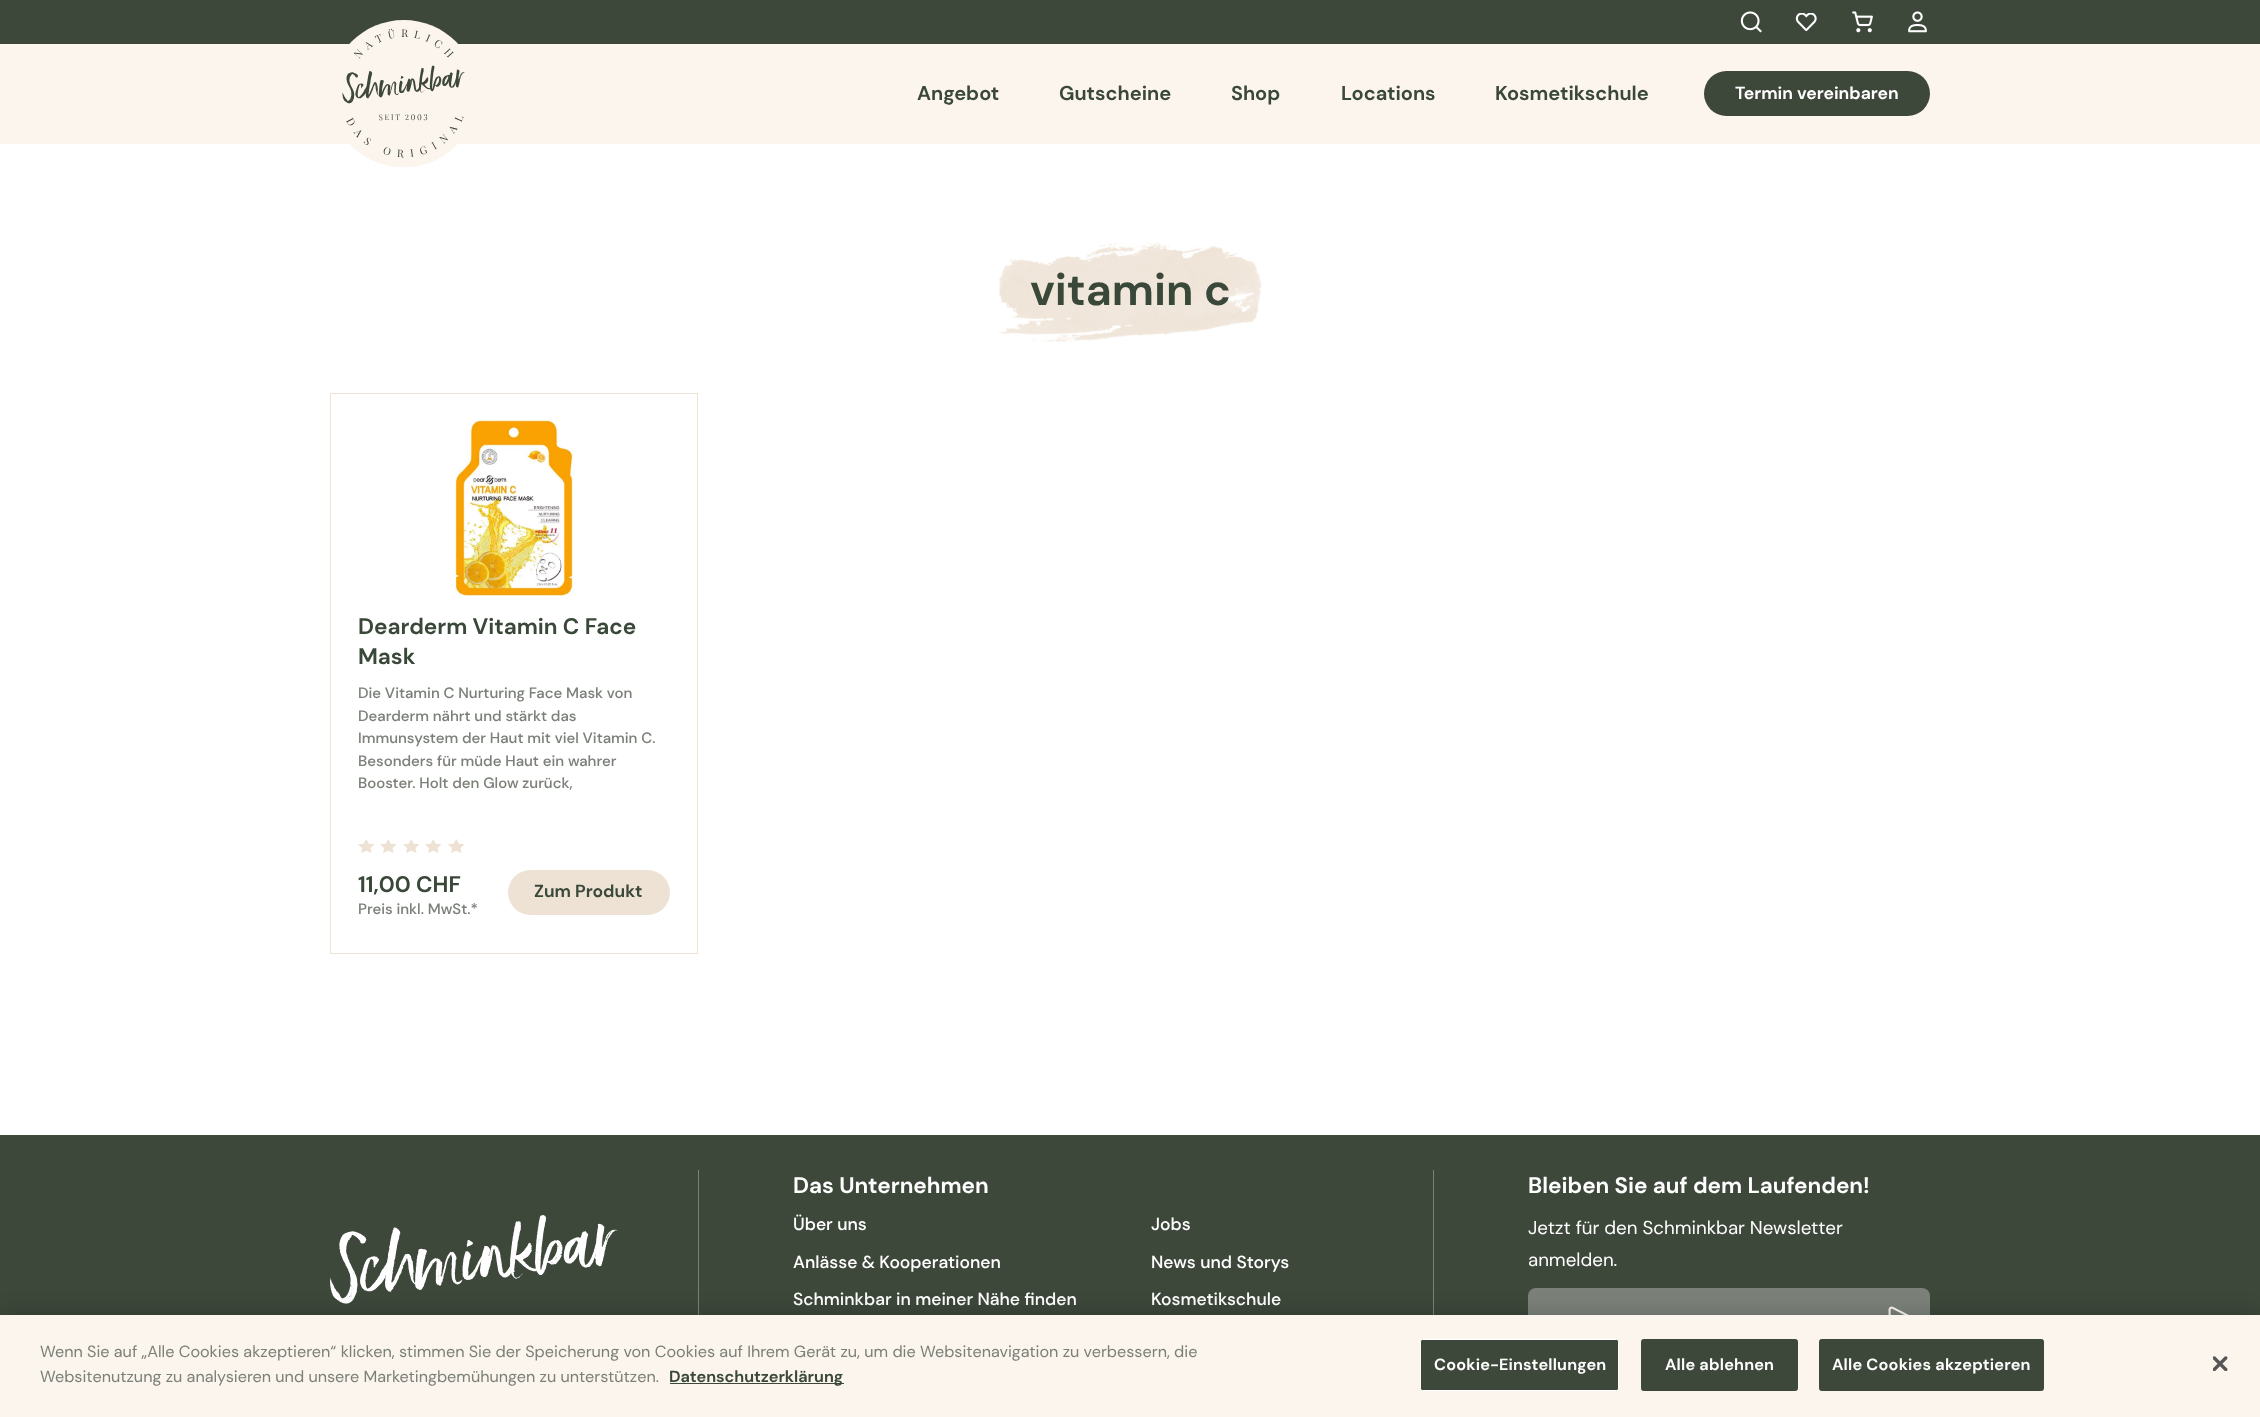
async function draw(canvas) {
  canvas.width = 2260
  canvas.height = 1417
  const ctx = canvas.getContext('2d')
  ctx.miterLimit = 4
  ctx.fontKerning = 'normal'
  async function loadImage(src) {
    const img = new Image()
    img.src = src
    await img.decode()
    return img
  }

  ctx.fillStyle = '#fff'
  ctx.fillRect(0, 0, 2260, 1417)
  ctx.fillStyle = '#3d473a'
  ctx.fillRect(0, 0, 2260, 44)
  ctx.drawImage(await loadImage('image0.png'), 1740, 11, 22, 22)
  ctx.drawImage(await loadImage('image1.png'), 1795, 13, 22, 18)
  ctx.drawImage(await loadImage('image2.png'), 1852, 11, 21, 22)
  ctx.drawImage(await loadImage('image3.png'), 1908, 11, 19, 22)
  ctx.fillStyle = '#fcf5ed'
  ctx.fillRect(0, 44, 2260, 100)
  ctx.drawImage(await loadImage('image4.png'), 342, 20, 123, 148)
  ctx.font = 'bold 20px DM Sans'
  ctx.fillStyle = '#3a4839'
  ctx.fillText('Angebot', 917, 100)
  ctx.fillText('Gutscheine', 1059, 100)
  ctx.fillText('Shop', 1231, 100)
  ctx.fillText('Locations', 1341, 100)
  ctx.fillText('Kosmetikschule', 1495, 100)
  ctx.fillStyle = '#3d473a'
  ctx.beginPath()
  ctx.roundRect(1704, 71, 226, 45, 22.5)
  ctx.fill()
  ctx.font = 'bold 17.5px DM Sans'
  ctx.fillStyle = '#fff'
  ctx.fillText('Termin vereinbaren', 1735, 99)
  ctx.drawImage(await loadImage('image5.png'), 998, 242, 264, 100)
  ctx.font = 'bold 45px DM Sans'
  ctx.fillStyle = '#3a4839'
  ctx.fillText('vitamin c', 1030, 305)
  ctx.strokeStyle = '#eee2d5'
  ctx.strokeRect(330.5, 393.5, 367, 560)
  ctx.drawImage(await loadImage('image6.png'), 455, 419, 119, 177)
  ctx.font = 'bold 22.5px DM Sans'
  ctx.fillText('Dearderm Vitamin C Face', 358, 634)
  ctx.fillText('Mask', 358, 664)
  ctx.font = '500 15px DM Sans'
  ctx.fillStyle = '#7b8179'
  ctx.fillText('Die Vitamin C Nurturing Face Mask von', 358, 698)
  ctx.fillText('Dearderm nährt und stärkt das', 358, 721)
  ctx.fillText('Immunsystem der Haut mit viel Vitamin C.', 358, 743)
  ctx.fillText('Besonders für müde Haut ein wahrer', 358, 766)
  ctx.fillText('Booster. Holt den Glow zurück,', 358, 788)
  ctx.drawImage(await loadImage('image7.png'), 358, 839, 107, 14)
  ctx.font = 'bold 22.5px DM Sans'
  ctx.fillStyle = '#3a4839'
  ctx.fillText('11,00 CHF', 358, 892)
  ctx.font = '500 15px DM Sans'
  ctx.fillStyle = '#7b8179'
  ctx.fillText('Preis inkl. MwSt.*', 358, 914)
  ctx.fillStyle = '#eee2d5'
  ctx.beginPath()
  ctx.roundRect(508, 870, 162, 45, 22.5)
  ctx.fill()
  ctx.font = 'bold 17.5px DM Sans'
  ctx.fillStyle = '#3a4839'
  ctx.fillText('Zum Produkt', 534, 897)
  ctx.fillStyle = '#3d473a'
  ctx.fillRect(0, 1135, 2260, 180)
  ctx.drawImage(await loadImage('image8.png'), 330, 1215, 288, 89)
  ctx.fillStyle = '#7b8179'
  ctx.fillRect(1433, 1170, 1, 145)
  ctx.fillRect(698, 1170, 1, 145)
  ctx.font = 'bold 22.5px DM Sans'
  ctx.fillStyle = '#fff'
  ctx.fillText('Das Unternehmen', 793, 1193)
  ctx.font = '500 17.5px DM Sans'
  ctx.fillText('Über uns', 793, 1230)
  ctx.fillText('Jobs', 1151, 1230)
  ctx.fillText('Anlässe & Kooperationen', 793, 1268)
  ctx.fillText('News und Storys', 1151, 1268)
  ctx.fillText('Schminkbar in meiner Nähe finden', 793, 1305)
  ctx.fillText('Kosmetikschule', 1151, 1305)
  ctx.font = 'bold 22.5px DM Sans'
  ctx.fillText('Bleiben Sie auf dem Laufenden!', 1528, 1193)
  ctx.font = '18.75px DM Sans'
  ctx.fillText('Jetzt für den Schminkbar Newsletter', 1528, 1234)
  ctx.fillText('anmelden.', 1528, 1266)
  ctx.fillStyle = '#7b8179'
  ctx.beginPath()
  ctx.roundRect(1528, 1288, 402, 60, 8)
  ctx.fill()
  ctx.drawImage(await loadImage('image9.png'), 1888, 1306, 21, 9)
  ctx.fillStyle = '#00000033'
  ctx.filter = 'blur(11px)'
  ctx.beginPath()
  ctx.rect(0, 1315, 2260, 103)
  ctx.fill()
  ctx.filter = 'none'
  ctx.fillStyle = '#fcf5ed'
  ctx.fillRect(0, 1315, 2260, 102)
  ctx.font = '16.25px DM Sans'
  ctx.fillStyle = '#7b8179'
  ctx.fillText('Wenn Sie auf „Alle Cookies akzeptieren“ klicken, stimmen Sie der Speicherung von Cookies auf Ihrem Gerät zu, um die Websitenavigation zu verbessern, die', 40, 1357)
  ctx.fillText('Websitenutzung zu analysieren und unsere Marketingbemühungen zu unterstützen.', 40, 1382)
  ctx.fillStyle = '#3d473a'
  ctx.fillRect(670, 1383, 174, 1)
  ctx.font = 'bold 16.25px DM Sans'
  ctx.fillStyle = '#3a4839'
  ctx.fillText('Datenschutzerklärung', 669, 1382)
  ctx.fillStyle = '#3d473a'
  ctx.beginPath()
  ctx.roundRect(1420.5, 1339.5, 198, 51, 2)
  ctx.fill()
  ctx.strokeStyle = '#fff'
  ctx.stroke()
  ctx.letterSpacing = '0.2px'
  ctx.fillStyle = '#fff'
  ctx.fillText('Cookie-Einstellungen', 1434, 1370)
  ctx.fillStyle = '#3d473a'
  ctx.beginPath()
  ctx.roundRect(1641.5, 1339.5, 156, 51, 2)
  ctx.fill()
  ctx.strokeStyle = '#3d473a'
  ctx.stroke()
  ctx.fillStyle = '#fff'
  ctx.fillText('Alle ablehnen', 1665, 1370)
  ctx.fillStyle = '#3d473a'
  ctx.beginPath()
  ctx.roundRect(1819.5, 1339.5, 224, 51, 2)
  ctx.fill()
  ctx.stroke()
  ctx.fillStyle = '#fff'
  ctx.fillText('Alle Cookies akzeptieren', 1832, 1370)
  ctx.drawImage(await loadImage('image10.png'), 2213, 1356, 15, 15)
}

draw(document.querySelector('canvas'))
